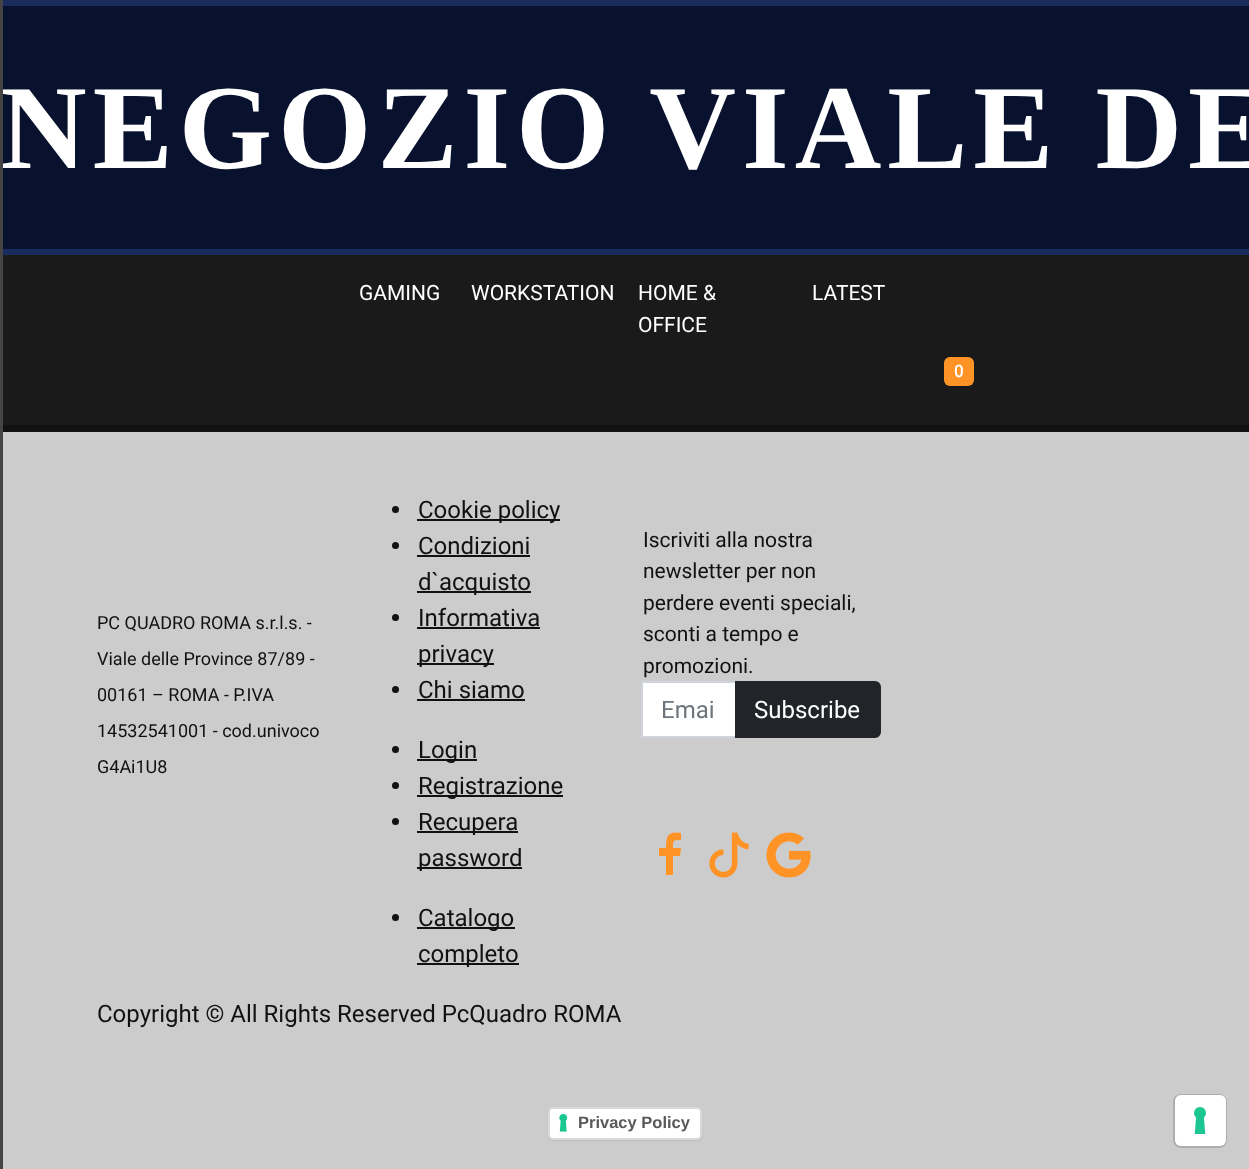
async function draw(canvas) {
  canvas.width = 1249
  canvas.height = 1169
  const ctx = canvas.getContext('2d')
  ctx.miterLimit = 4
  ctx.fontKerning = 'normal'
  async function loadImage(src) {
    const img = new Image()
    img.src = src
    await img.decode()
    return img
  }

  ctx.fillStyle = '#1a1a1a'
  ctx.fillRect(0, 0, 1249, 1169)
  ctx.fillStyle = '#1a2c5e'
  ctx.fillRect(0, 0, 1249, 6)
  ctx.fillRect(0, 249, 1249, 6)
  ctx.fillStyle = '#08112d'
  ctx.fillRect(3, 6, 1246, 243)
  ctx.letterSpacing = '6px'
  ctx.font = 'bold 120px Liberation Serif'
  ctx.fillStyle = '#fff'
  ctx.fillText('NEGOZIO VIALE DE', 0, 168)
  ctx.fillStyle = '#111'
  ctx.fillRect(0, 425, 1249, 7)
  ctx.fillStyle = '#444'
  ctx.fillRect(0, 0, 3, 1169)
  ctx.letterSpacing = '0px'
  ctx.font = '21px Roboto'
  ctx.fillStyle = '#fff'
  ctx.fillText('GAMING', 359, 300)
  ctx.fillText('WORKSTATION', 471, 300)
  ctx.fillText('HOME &', 638, 300)
  ctx.fillText('OFFICE', 638, 332)
  ctx.fillText('LATEST', 812, 300)
  ctx.fillStyle = '#ff9326'
  ctx.beginPath()
  ctx.roundRect(944, 357, 30, 29, 6)
  ctx.fill()
  ctx.font = 'bold 16.5px Roboto'
  ctx.fillStyle = '#fff'
  ctx.fillText('0', 954, 377)
  ctx.fillStyle = '#ccc'
  ctx.fillRect(3, 432, 1246, 737)
  ctx.font = '18px Roboto'
  ctx.fillStyle = '#111'
  ctx.fillText('PC QUADRO ROMA s.r.l.s. -', 97, 629)
  ctx.fillText('Viale delle Province 87/89 -', 97, 665)
  ctx.fillText('00161 – ROMA - P.IVA', 97, 701)
  ctx.fillText('14532541001 - cod.univoco', 97, 737)
  ctx.fillText('G4Ai1U8', 97, 773)
  ctx.beginPath()
  ctx.arc(395.5, 509.5, 3.5, 0, 2 * Math.PI)
  ctx.fill()
  ctx.fillRect(417, 519, 143, 2)
  ctx.font = '24px Roboto'
  ctx.fillText('Cookie policy', 418, 518)
  ctx.beginPath()
  ctx.arc(395.5, 545.5, 3.5, 0, 2 * Math.PI)
  ctx.fill()
  ctx.fillText('Condizioni', 418, 554)
  ctx.fillRect(417, 555, 113, 2)
  ctx.fillRect(417, 591, 114, 2)
  ctx.fillText('d`acquisto', 418, 590)
  ctx.beginPath()
  ctx.arc(395.5, 617.5, 3.5, 0, 2 * Math.PI)
  ctx.fill()
  ctx.fillText('Informativa', 418, 626)
  ctx.fillRect(417, 627, 123, 2)
  ctx.fillRect(417, 663, 77, 2)
  ctx.fillText('privacy', 418, 662)
  ctx.beginPath()
  ctx.arc(395.5, 689.5, 3.5, 0, 2 * Math.PI)
  ctx.fill()
  ctx.fillText('Chi siamo', 418, 698)
  ctx.fillRect(417, 699, 108, 2)
  ctx.beginPath()
  ctx.arc(395.5, 749.5, 3.5, 0, 2 * Math.PI)
  ctx.fill()
  ctx.fillRect(417, 759, 60, 2)
  ctx.fillText('Login', 418, 758)
  ctx.beginPath()
  ctx.arc(395.5, 785.5, 3.5, 0, 2 * Math.PI)
  ctx.fill()
  ctx.fillRect(417, 795, 146, 2)
  ctx.fillText('Registrazione', 418, 794)
  ctx.beginPath()
  ctx.arc(395.5, 821.5, 3.5, 0, 2 * Math.PI)
  ctx.fill()
  ctx.fillRect(417, 831, 101, 2)
  ctx.fillText('Recupera', 418, 830)
  ctx.fillRect(417, 867, 105, 2)
  ctx.fillText('password', 418, 866)
  ctx.beginPath()
  ctx.arc(395.5, 917.5, 3.5, 0, 2 * Math.PI)
  ctx.fill()
  ctx.fillRect(417, 927, 98, 2)
  ctx.fillText('Catalogo', 418, 926)
  ctx.fillRect(417, 963, 102, 2)
  ctx.fillText('completo', 418, 962)
  ctx.font = '21px Roboto'
  ctx.fillText('Iscriviti alla nostra', 643, 547)
  ctx.fillText('newsletter per non', 643, 578)
  ctx.fillText('perdere eventi speciali,', 643, 610)
  ctx.fillText('sconti a tempo e', 643, 641)
  ctx.fillText('promozioni.', 643, 673)
  ctx.fillStyle = '#fff'
  ctx.beginPath()
  ctx.rect(642, 682, 94, 55)
  ctx.fill()
  ctx.strokeStyle = '#ced4da'
  ctx.lineWidth = 2
  ctx.stroke()
  ctx.font = '24px Roboto'
  ctx.fillStyle = '#6c757d'
  ctx.fillText('Emai', 661, 718)
  ctx.fillStyle = '#212529'
  ctx.beginPath()
  ctx.roundRect(736, 682, 144, 55, [0, 5, 5, 0])
  ctx.fill()
  ctx.strokeStyle = '#212529'
  ctx.stroke()
  ctx.fillStyle = '#fff'
  ctx.fillText('Subscribe', 754, 718)
  ctx.fillStyle = '#ff9326'
  ctx.beginPath()
  ctx.moveTo(681, 833)
  ctx.bezierCurveTo(668, 831, 666, 836, 666, 848)
  ctx.lineTo(659, 848)
  ctx.lineTo(659, 856)
  ctx.lineTo(666, 856)
  ctx.lineTo(666, 875)
  ctx.lineTo(673, 875)
  ctx.lineTo(673, 856)
  ctx.lineTo(680, 856)
  ctx.lineTo(681, 848)
  ctx.lineTo(673, 848)
  ctx.bezierCurveTo(673, 840, 673, 840, 681, 840)
  ctx.closePath()
  ctx.fill()
  ctx.drawImage(await loadImage('image0.png'), 709, 832, 40, 46)
  ctx.drawImage(await loadImage('image1.png'), 766, 832, 45, 46)
  ctx.fillStyle = '#111'
  ctx.fillText('Copyright © All Rights Reserved PcQuadro ROMA', 97, 1022)
  ctx.fillStyle = '#00000026'
  ctx.filter = 'blur(1px)'
  ctx.beginPath()
  ctx.roundRect(549, 1110, 152, 30, 3)
  ctx.fill()
  ctx.filter = 'none'
  ctx.fillStyle = '#fff'
  ctx.beginPath()
  ctx.roundRect(548, 1107, 154, 33, 5)
  ctx.fill()
  ctx.drawImage(await loadImage('image2.png'), 559, 1113, 9, 19)
  ctx.beginPath()
  ctx.roundRect(549, 1108, 152, 31, 4)
  ctx.strokeStyle = '#00000026'
  ctx.stroke()
  ctx.font = 'bold 16.5px Liberation Sans'
  ctx.fillStyle = '#595959'
  ctx.fillText('Privacy Policy', 578, 1128)
  ctx.beginPath()
  ctx.roundRect(1174, 1095, 52, 52, 7)
  ctx.strokeStyle = '#adadad'
  ctx.stroke()
  ctx.fillStyle = '#fff'
  ctx.beginPath()
  ctx.roundRect(1175, 1095, 51, 51, 6)
  ctx.fill()
  ctx.drawImage(await loadImage('image3.png'), 1194, 1107, 12, 27)
}

draw(document.querySelector('canvas'))
